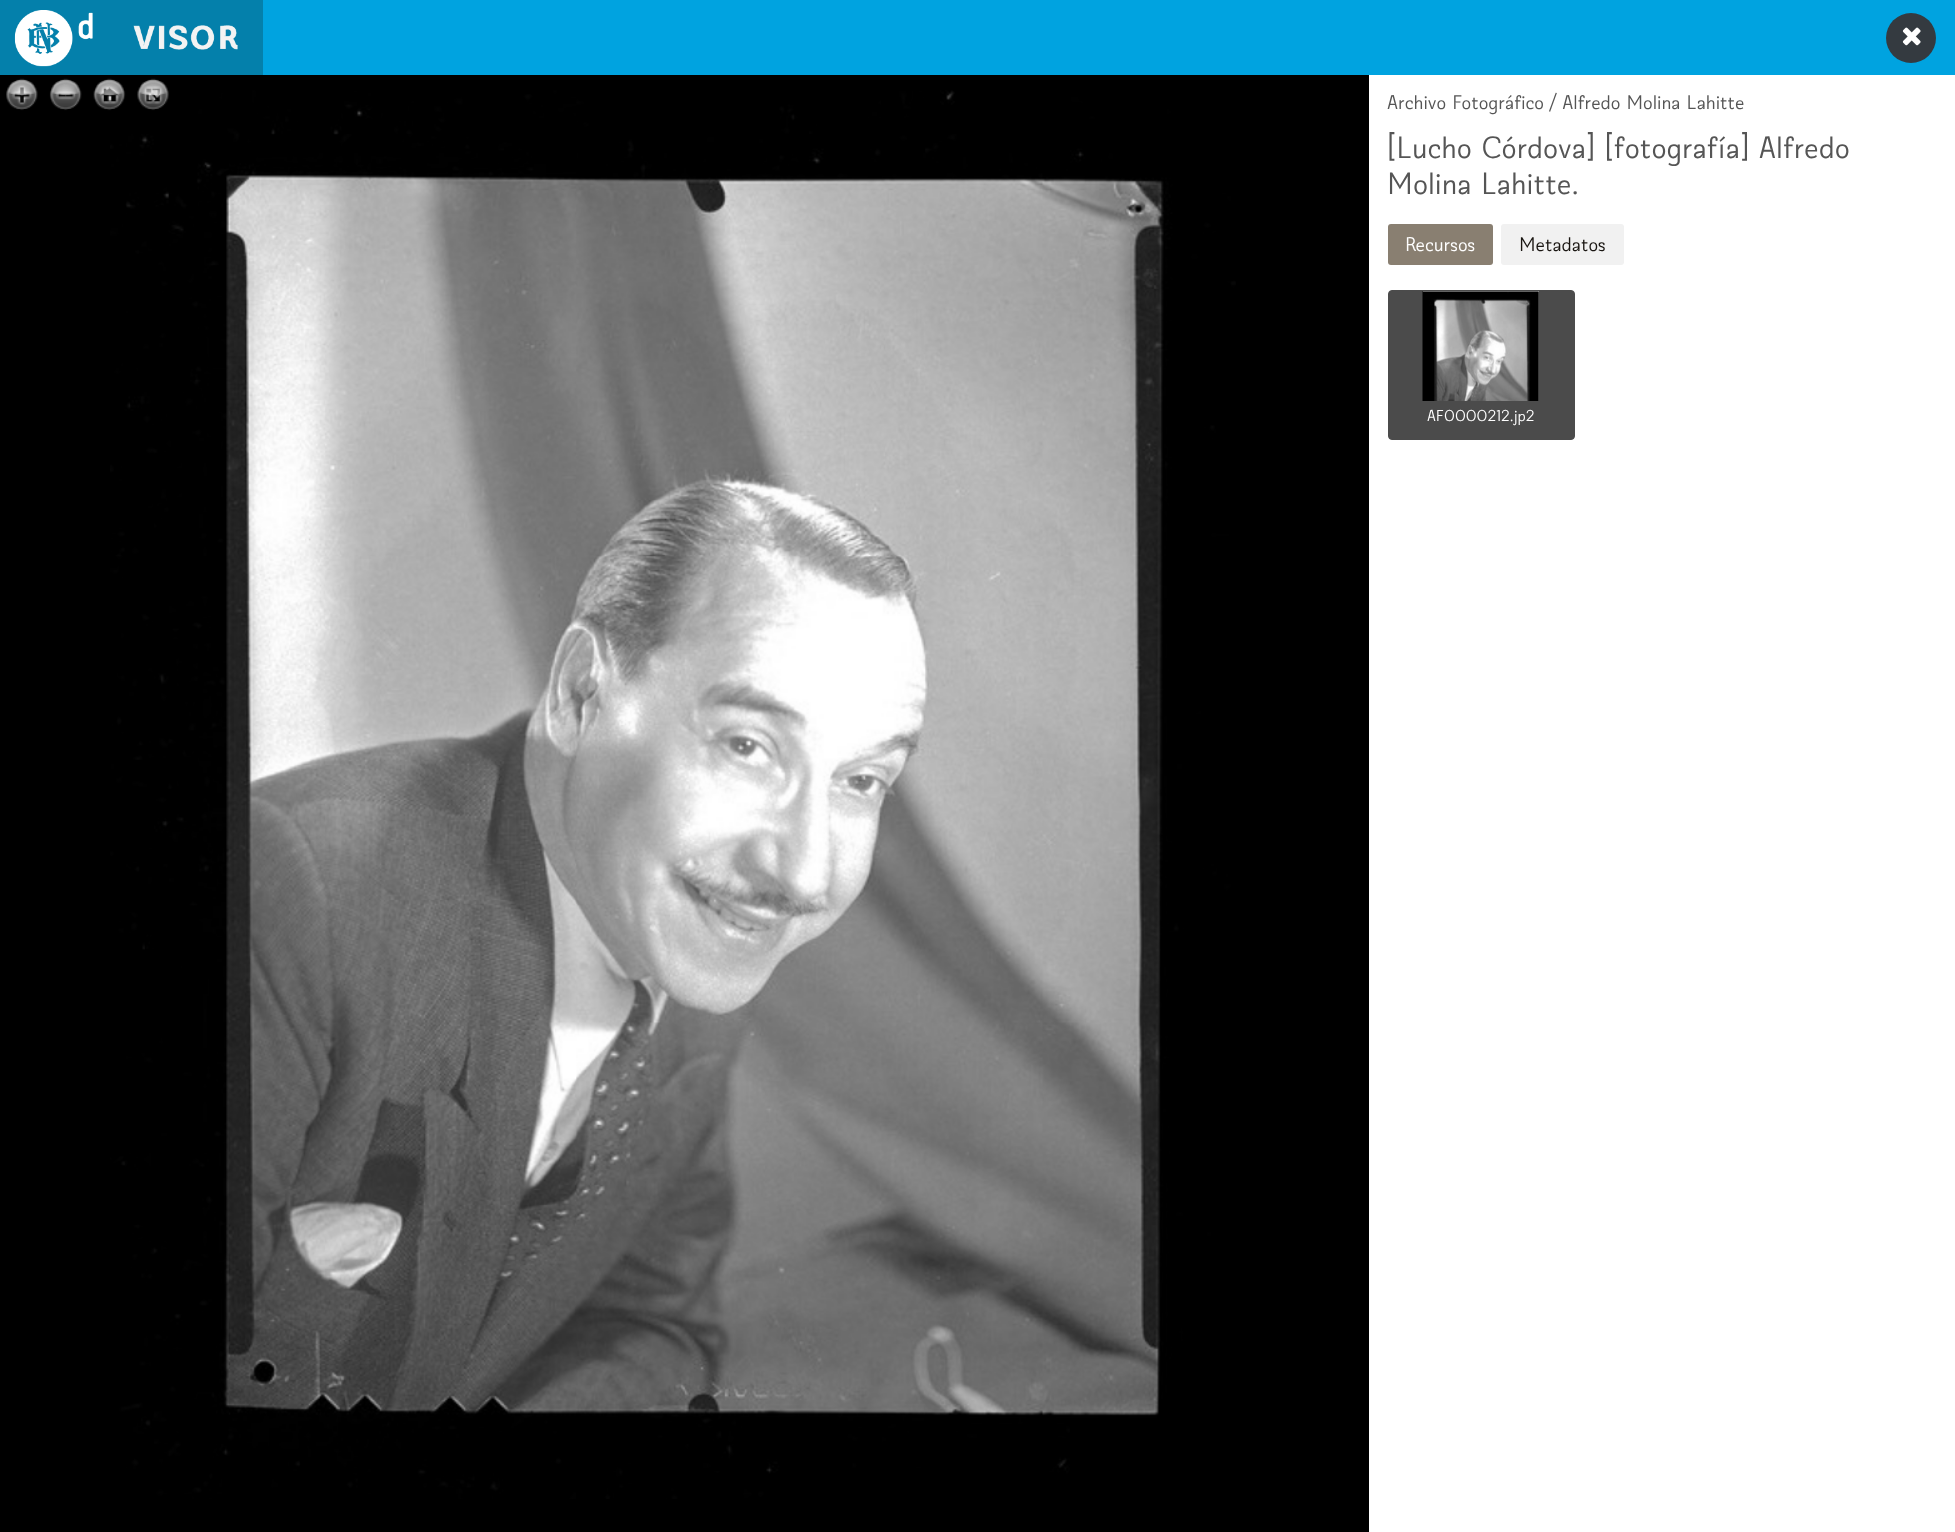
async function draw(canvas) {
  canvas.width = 1955
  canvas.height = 1532
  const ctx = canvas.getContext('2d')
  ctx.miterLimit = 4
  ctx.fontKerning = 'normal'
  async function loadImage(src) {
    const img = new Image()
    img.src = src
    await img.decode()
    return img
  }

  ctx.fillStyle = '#000'
  ctx.fillRect(0, 0, 1955, 1532)
  ctx.fillStyle = '#00a3e0'
  ctx.fillRect(263, 0, 1692, 75)
  ctx.fillStyle = '#0480ab'
  ctx.fillRect(0, 0, 263, 75)
  ctx.drawImage(await loadImage('image0.png'), 14, 10, 224, 57)
  ctx.fillStyle = '#343a40'
  ctx.beginPath()
  ctx.arc(1911, 38, 25, 0, 2 * Math.PI)
  ctx.fill()
  ctx.drawImage(await loadImage('image1.png'), 1902, 27, 19, 19)
  ctx.drawImage(await loadImage('image2.png'), 6, 78, 1230, 1421)
  ctx.fillStyle = '#fff'
  ctx.fillRect(1369, 75, 586, 1457)
  ctx.font = '20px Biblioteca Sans'
  ctx.fillStyle = '#555'
  ctx.fillText('Archivo Fotográfico / Alfredo Molina Lahitte', 1387, 109)
  ctx.font = '31.25px Biblioteca Sans'
  ctx.fillText('[Lucho Córdova] [fotografía] Alfredo', 1387, 158)
  ctx.fillText('Molina Lahitte.', 1387, 194)
  ctx.fillStyle = '#897f71'
  ctx.beginPath()
  ctx.roundRect(1388, 224, 105, 41, 3)
  ctx.fill()
  ctx.font = '20px Biblioteca Sans'
  ctx.fillStyle = '#fff'
  ctx.fillText('Recursos', 1405, 251)
  ctx.fillStyle = '#f1f1f1'
  ctx.beginPath()
  ctx.roundRect(1501, 224, 123, 41, 3)
  ctx.fill()
  ctx.fillStyle = '#191511'
  ctx.fillText('Metadatos', 1519, 251)
  ctx.fillStyle = '#4b4b4b'
  ctx.beginPath()
  ctx.roundRect(1388.5, 290.5, 186, 149, 3.5)
  ctx.fill()
  ctx.strokeStyle = '#4b4b4b'
  ctx.stroke()
  ctx.fillStyle = '#fff'
  ctx.fillRect(1423, 291, 116, 110)
  ctx.drawImage(await loadImage('image3.png'), 1422, 291, 117, 110)
  ctx.font = '16px Biblioteca Sans'
  ctx.fillText('AF0000212.jp2', 1427, 421)
}

draw(document.querySelector('canvas'))
